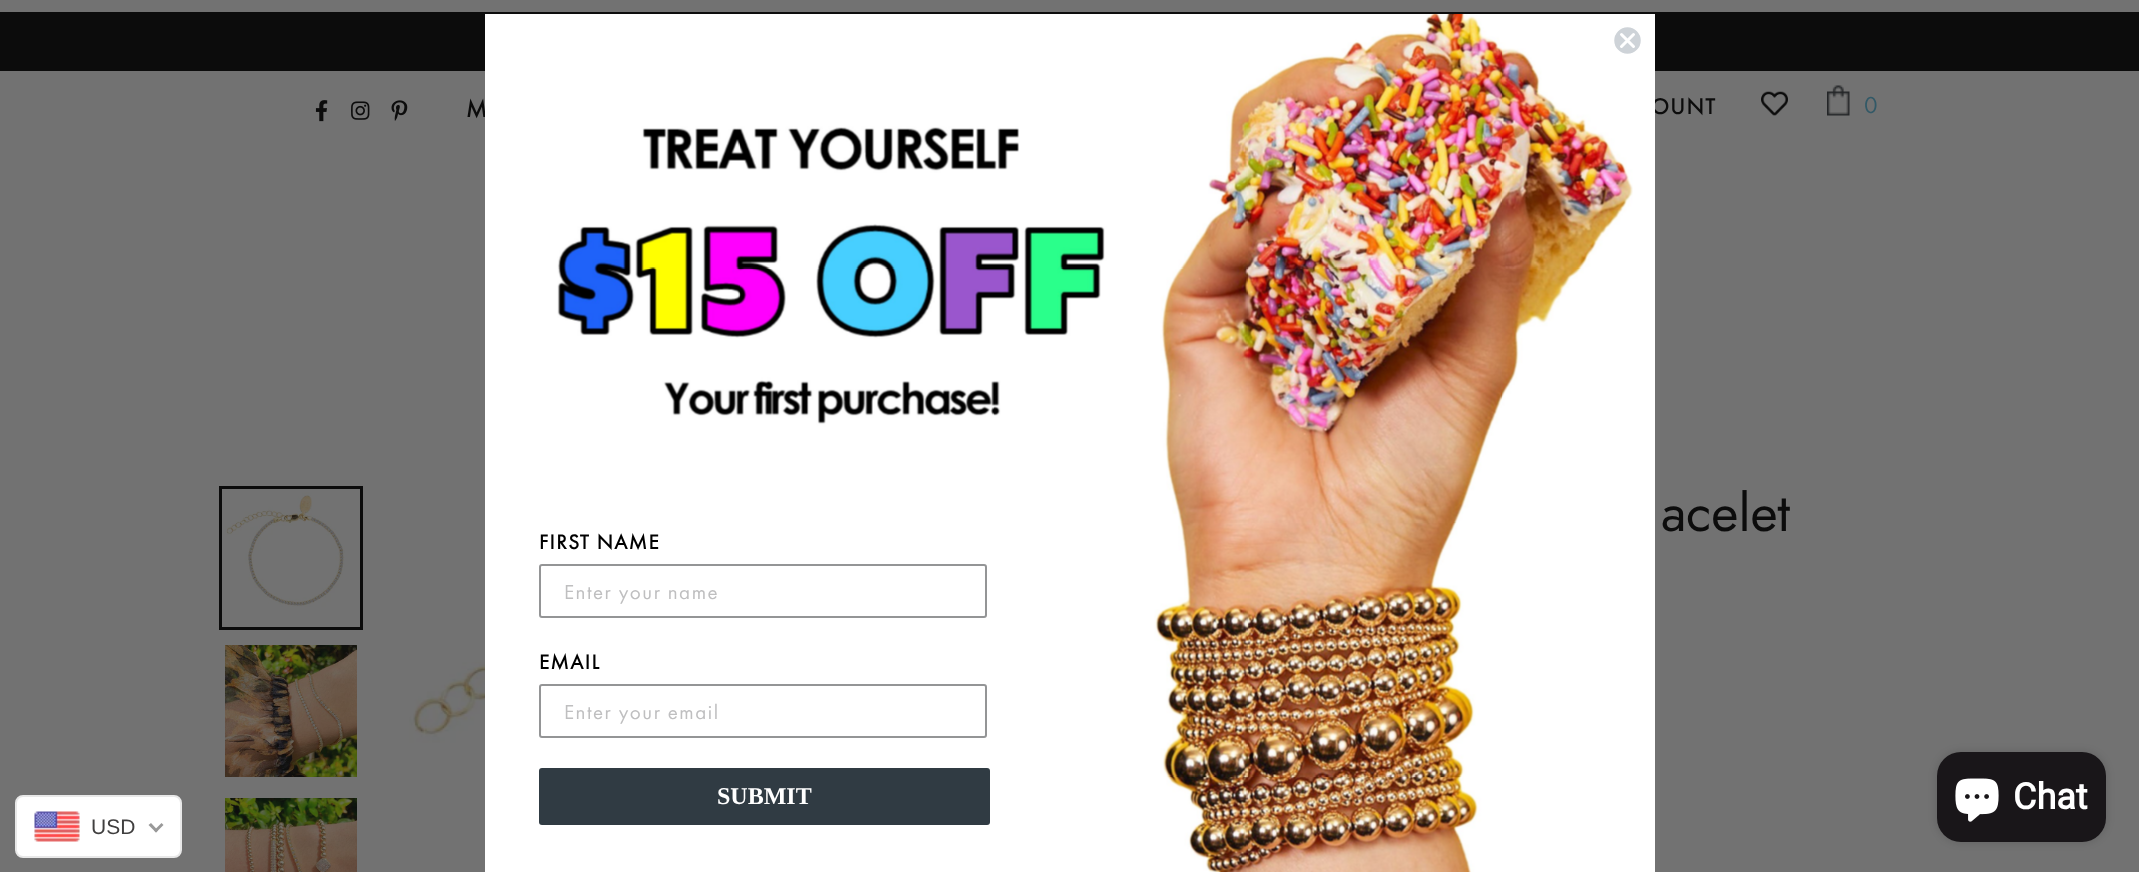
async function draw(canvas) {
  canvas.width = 2139
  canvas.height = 872
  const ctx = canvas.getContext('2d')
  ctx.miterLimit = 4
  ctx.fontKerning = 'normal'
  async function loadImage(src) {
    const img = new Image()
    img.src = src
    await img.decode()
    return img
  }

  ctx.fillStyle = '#727272'
  ctx.fillRect(0, 0, 2139, 872)
  ctx.fillStyle = '#0c0c0c'
  ctx.fillRect(0, 12, 2139, 59)
  ctx.drawImage(await loadImage('image0.png'), 315, 100, 13, 22)
  ctx.drawImage(await loadImage('image1.png'), 351, 101, 19, 19)
  ctx.drawImage(await loadImage('image2.png'), 391, 100, 17, 21)
  ctx.font = 'bold 24px Futura PT'
  ctx.fillText('M', 466, 117)
  ctx.letterSpacing = '1.5px'
  ctx.font = 'bold 22.5px Futura PT'
  ctx.fillText('OUNT', 1651, 114)
  ctx.drawImage(await loadImage('image3.png'), 1761, 91, 27, 25)
  ctx.drawImage(await loadImage('image4.png'), 1827, 85, 23, 31)
  ctx.letterSpacing = '0px'
  ctx.font = '24px Futura PT'
  ctx.fillStyle = '#325967'
  ctx.fillText('0', 1864, 113)
  ctx.strokeStyle = '#0c0c0c'
  ctx.lineWidth = 3
  ctx.strokeRect(220.5, 487.5, 141, 141)
  ctx.drawImage(await loadImage('image5.png'), 225, 492, 120, 115)
  ctx.drawImage(await loadImage('image6.png'), 225, 645, 132, 132)
  ctx.drawImage(await loadImage('image7.png'), 225, 798, 132, 74)
  ctx.drawImage(await loadImage('image8.png'), 409, 508, 76, 364)
  ctx.font = '52.5px Jost'
  ctx.fillStyle = '#0c0c0c'
  ctx.fillText('acelet', 1661, 531)
  ctx.fillStyle = '#fff'
  ctx.fillRect(485, 14, 1170, 858)
  ctx.drawImage(await loadImage('image9.png'), 557, 14, 1076, 858)
  ctx.fillStyle = '#ced3d8'
  ctx.beginPath()
  ctx.arc(1627.5, 40.5, 14, 0, 2 * Math.PI)
  ctx.fill()
  ctx.save()
  ctx.beginPath()
  ctx.rect(1613, 26, 30, 30)
  ctx.clip()
  ctx.beginPath()
  ctx.arc(1627.5, 40.5, 14, 0, 2 * Math.PI)
  ctx.strokeStyle = '#fff'
  ctx.lineWidth = 1.5
  ctx.stroke()
  ctx.restore()
  ctx.beginPath()
  ctx.moveTo(1621.5, 34.5)
  ctx.lineTo(1633.5, 46.5)
  ctx.moveTo(1621.5, 46.5)
  ctx.lineTo(1633.5, 34.5)
  ctx.closePath()
  ctx.strokeStyle = '#fff'
  ctx.lineCap = 'round'
  ctx.lineJoin = 'round'
  ctx.stroke()
  ctx.letterSpacing = '1.5px'
  ctx.font = 'bold 21px "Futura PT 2"'
  ctx.fillStyle = '#000'
  ctx.fillText('FIRST NAME', 539, 549)
  ctx.beginPath()
  ctx.roundRect(540, 565, 446, 52, 2)
  ctx.strokeStyle = '#949596'
  ctx.lineWidth = 2
  ctx.lineJoin = 'miter'
  ctx.stroke()
  ctx.font = '21px "Futura PT 2"'
  ctx.fillStyle = '#bfbfc0'
  ctx.fillText('Enter your name', 564, 599)
  ctx.font = 'bold 21px "Futura PT 2"'
  ctx.fillStyle = '#000'
  ctx.fillText('EMAIL', 539, 669)
  ctx.beginPath()
  ctx.roundRect(540, 685, 446, 52, 2)
  ctx.stroke()
  ctx.font = '21px "Futura PT 2"'
  ctx.fillStyle = '#bfbfc0'
  ctx.fillText('Enter your email', 564, 719)
  ctx.fillStyle = '#303b43'
  ctx.beginPath()
  ctx.roundRect(539, 768, 451, 57, 3)
  ctx.fill()
  ctx.letterSpacing = '0px'
  ctx.font = 'bold 24px Liberation Serif'
  ctx.fillStyle = '#fff'
  ctx.fillText('SUBMIT', 717, 804)
  ctx.fillStyle = '#00000026'
  ctx.filter = 'blur(4px)'
  ctx.beginPath()
  ctx.roundRect(1937, 752, 169, 90, 24)
  ctx.fill()
  ctx.filter = 'none'
  ctx.fillStyle = '#191619'
  ctx.beginPath()
  ctx.roundRect(1937, 752, 169, 90, 24)
  ctx.fill()
  ctx.drawImage(await loadImage('image10.png'), 1955, 778, 44, 44)
  ctx.font = 'bold 36px Roboto'
  ctx.fillStyle = '#fff'
  ctx.fillText('Chat', 2013, 809)
  ctx.beginPath()
  ctx.roundRect(16, 796, 165, 61, 7)
  ctx.fill()
  ctx.strokeStyle = '#e8e8e8'
  ctx.stroke()
  ctx.drawImage(await loadImage('image11.png'), 34, 811, 46, 31)
  ctx.font = '21px Liberation Sans'
  ctx.fillStyle = '#403f3f'
  ctx.fillText('USD', 91, 834)
  ctx.fillStyle = '#999'
  ctx.beginPath()
  ctx.moveTo(161.5, 823)
  ctx.lineTo(163.5, 825)
  ctx.lineTo(156, 832.5)
  ctx.lineTo(154, 830.5)
  ctx.closePath()
  ctx.fill()
  ctx.beginPath()
  ctx.moveTo(151, 823)
  ctx.lineTo(158, 830.5)
  ctx.lineTo(156, 832.5)
  ctx.lineTo(148.5, 825)
  ctx.closePath()
  ctx.fill()
}

draw(document.querySelector('canvas'))
